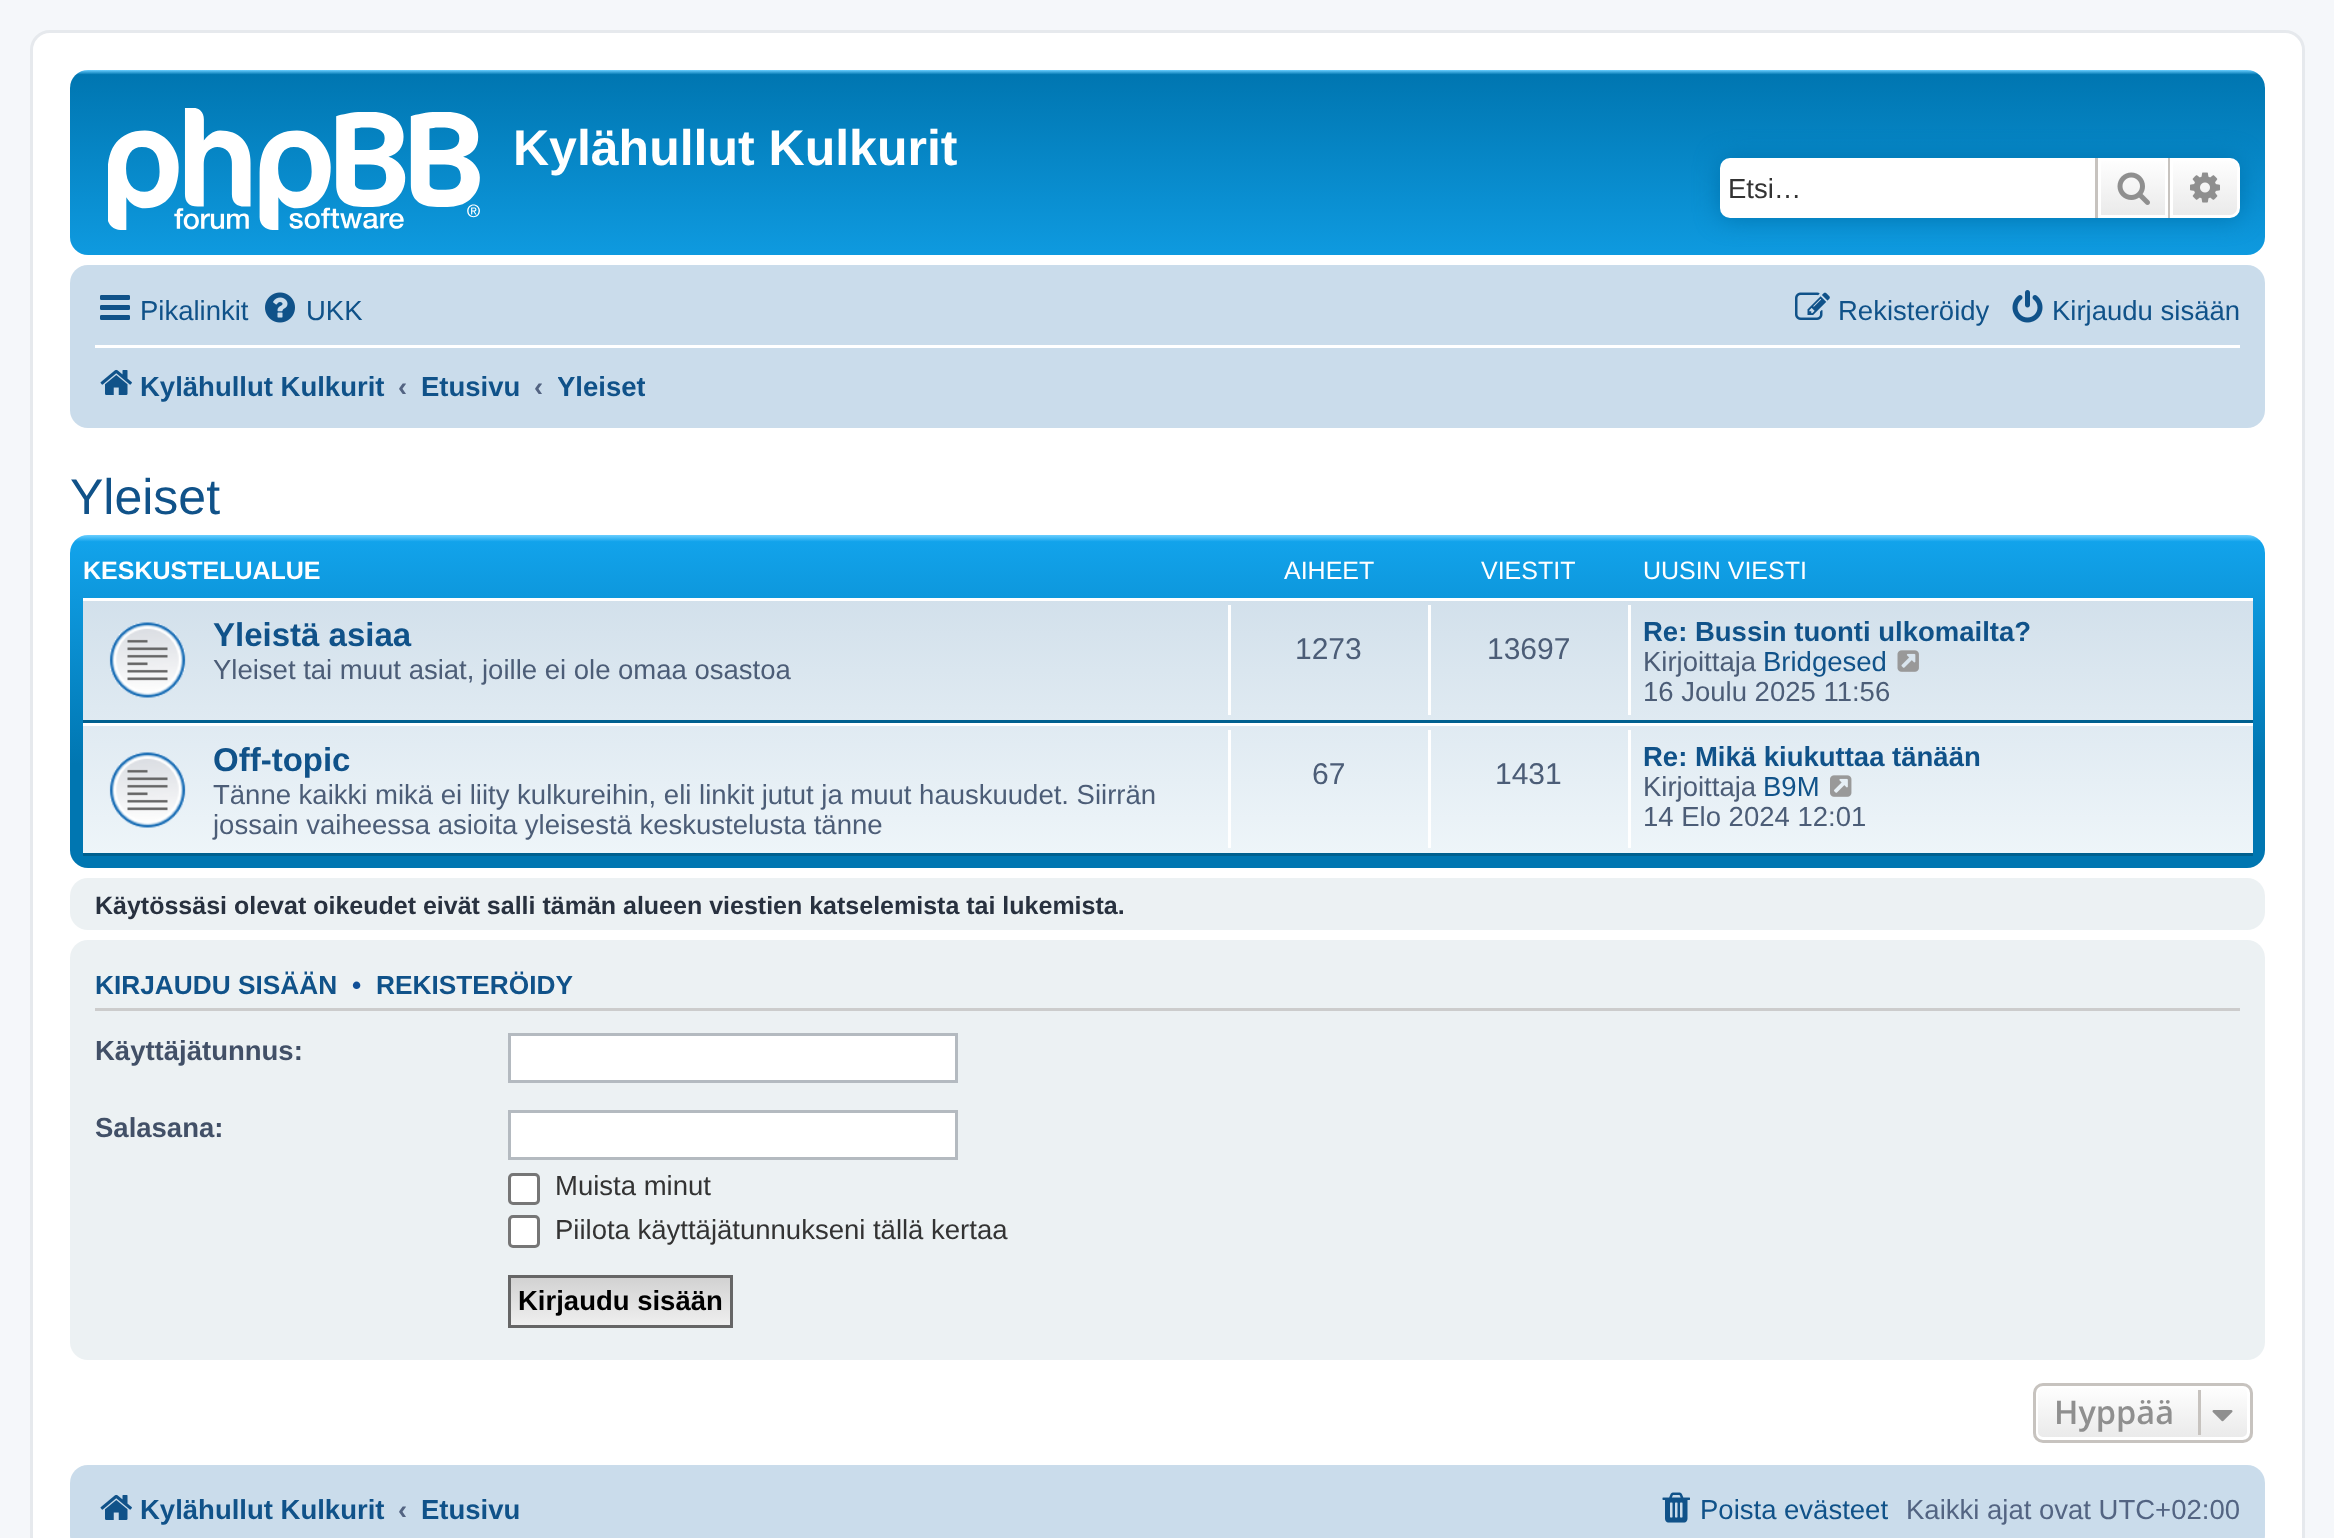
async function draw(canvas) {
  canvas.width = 2334
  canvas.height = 1538
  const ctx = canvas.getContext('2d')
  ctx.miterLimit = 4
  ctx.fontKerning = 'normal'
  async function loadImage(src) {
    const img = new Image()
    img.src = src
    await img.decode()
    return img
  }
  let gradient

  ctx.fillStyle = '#f5f7fa'
  ctx.fillRect(0, 0, 2334, 1538)
  ctx.fillStyle = '#fff'
  ctx.beginPath()
  ctx.roundRect(31.5, 31.5, 2272, 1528, 18.5)
  ctx.fill()
  ctx.strokeStyle = '#e6e9ed'
  ctx.lineWidth = 3
  ctx.stroke()
  gradient = ctx.createLinearGradient(1168, 70, 1168, 300)
  gradient.addColorStop(0, '#6aceff')
  gradient.addColorStop(0.02, '#0076b1')
  gradient.addColorStop(1, '#12a3eb')
  ctx.fillStyle = gradient
  ctx.beginPath()
  ctx.roundRect(70, 70, 2195, 185, 18)
  ctx.fill()
  ctx.drawImage(await loadImage('image0.png'), 108, 108, 372, 122)
  ctx.font = 'bold 50px Liberation Sans'
  ctx.fillStyle = '#fff'
  ctx.fillText('Kylähullut Kulkurit', 513, 165)
  ctx.fillStyle = '#0075b0'
  ctx.filter = 'blur(12.5px)'
  ctx.beginPath()
  ctx.roundRect(1720, 158, 520, 60, 10)
  ctx.fill()
  ctx.filter = 'none'
  ctx.fillStyle = '#fff'
  ctx.beginPath()
  ctx.roundRect(1720, 158, 375, 60, [10, 0, 0, 10])
  ctx.fill()
  ctx.font = '27.5px Liberation Sans'
  ctx.fillStyle = '#333'
  ctx.fillText('Etsi…', 1728, 198)
  gradient = ctx.createLinearGradient(2133, 158, 2133, 218)
  gradient.addColorStop(0, '#fff')
  gradient.addColorStop(1, '#e9e9e9')
  ctx.fillStyle = gradient
  ctx.fillRect(2101, 161, 64, 54)
  ctx.strokeStyle = '#fff'
  ctx.strokeRect(2099.5, 159.5, 67, 57)
  ctx.fillStyle = '#c7c3bf'
  ctx.fillRect(2168, 158, 2, 60)
  ctx.fillRect(2095, 158, 3, 60)
  ctx.drawImage(await loadImage('image1.png'), 2117, 172, 33, 33)
  gradient = ctx.createLinearGradient(2205, 158, 2205, 218)
  gradient.addColorStop(0, '#fff')
  gradient.addColorStop(1, '#e9e9e9')
  ctx.fillStyle = gradient
  ctx.beginPath()
  ctx.roundRect(2171.5, 159.5, 67, 57, [0, 8.5, 8.5, 0])
  ctx.fill()
  ctx.stroke()
  ctx.drawImage(await loadImage('image2.png'), 2190, 172, 30, 31)
  ctx.fillStyle = '#cadceb'
  ctx.beginPath()
  ctx.roundRect(70, 265, 2195, 163, 18)
  ctx.fill()
  ctx.drawImage(await loadImage('image3.png'), 100, 295, 30, 25)
  ctx.fillStyle = '#105289'
  ctx.fillText('Pikalinkit', 140, 320)
  ctx.drawImage(await loadImage('image4.png'), 265, 292, 30, 31)
  ctx.fillText('UKK', 306, 320)
  ctx.drawImage(await loadImage('image5.png'), 1795, 292, 35, 28)
  ctx.fillText('Rekisteröidy', 1838, 320)
  ctx.drawImage(await loadImage('image6.png'), 2012, 290, 31, 33)
  ctx.fillText('Kirjaudu sisään', 2052, 320)
  ctx.fillStyle = '#fff'
  ctx.fillRect(95, 345, 2145, 3)
  ctx.drawImage(await loadImage('image7.png'), 100, 369, 32, 26)
  ctx.font = 'bold 27.5px Liberation Sans'
  ctx.fillStyle = '#105289'
  ctx.fillText('Kylähullut Kulkurit', 140, 396)
  ctx.fillStyle = '#536482'
  ctx.fillText('‹', 398, 396)
  ctx.fillStyle = '#105289'
  ctx.fillText('Etusivu', 421, 396)
  ctx.fillStyle = '#536482'
  ctx.fillText('‹', 534, 396)
  ctx.save()
  ctx.beginPath()
  ctx.rect(558, 355, 87, 60)
  ctx.clip()
  ctx.fillStyle = '#105289'
  ctx.fillText('Yleiset', 557, 396)
  ctx.restore()
  ctx.font = '50px Liberation Sans'
  ctx.fillStyle = '#105289'
  ctx.fillText('Yleiset', 70, 514)
  gradient = ctx.createLinearGradient(1168, 535, 1168, 868)
  gradient.addColorStop(0, '#6aceff')
  gradient.addColorStop(0.02, '#12a3eb')
  gradient.addColorStop(0.69, '#0076b1')
  gradient.addColorStop(1, '#0076b1')
  ctx.fillStyle = gradient
  ctx.beginPath()
  ctx.roundRect(70, 535, 2195, 333, 18)
  ctx.fill()
  ctx.font = 'bold 25px Liberation Sans'
  ctx.fillStyle = '#fff'
  ctx.fillText('KESKUSTELUALUE', 83, 579)
  ctx.font = '25px Liberation Sans'
  ctx.fillText('AIHEET', 1284, 579)
  ctx.fillText('VIESTIT', 1481, 579)
  ctx.fillText('UUSIN VIESTI', 1643, 579)
  gradient = ctx.createLinearGradient(1168, 597, 1168, 855)
  gradient.addColorStop(0, '#d2e0eb')
  gradient.addColorStop(1, '#eef5f9')
  ctx.fillStyle = gradient
  ctx.fillRect(83, 601, 2170, 252)
  ctx.fillStyle = '#fff'
  ctx.fillRect(83, 598, 2170, 3)
  ctx.fillStyle = '#00608f'
  ctx.fillRect(83, 720, 2170, 3)
  ctx.drawImage(await loadImage('image8.png'), 109, 622, 77, 76)
  ctx.font = 'bold 33px Liberation Sans'
  ctx.fillStyle = '#105289'
  ctx.fillText('Yleistä asiaa', 213, 646)
  ctx.font = '27.5px Liberation Sans'
  ctx.fillStyle = '#4c5d77'
  ctx.fillText('Yleiset tai muut asiat, joille ei ole omaa osastoa', 213, 679)
  ctx.fillStyle = '#fff'
  ctx.fillRect(1228, 605, 3, 110)
  ctx.font = '30px Liberation Sans'
  ctx.fillStyle = '#4c5d77'
  ctx.fillText('1273', 1295, 659)
  ctx.fillStyle = '#fff'
  ctx.fillRect(1428, 605, 3, 110)
  ctx.fillStyle = '#4c5d77'
  ctx.fillText('13697', 1487, 659)
  ctx.fillStyle = '#fff'
  ctx.fillRect(1628, 605, 3, 110)
  ctx.font = 'bold 27.5px Liberation Sans'
  ctx.fillStyle = '#105289'
  ctx.fillText('Re: Bussin tuonti ulkomailta?', 1643, 641)
  ctx.font = '27.5px Liberation Sans'
  ctx.fillStyle = '#4c5d77'
  ctx.fillText('Kirjoittaja', 1643, 671)
  ctx.fillStyle = '#105289'
  ctx.fillText('Bridgesed', 1763, 671)
  ctx.drawImage(await loadImage('image9.png'), 1897, 650, 22, 22)
  ctx.fillStyle = '#4c5d77'
  ctx.fillText('16 Joulu 2025 11:56', 1643, 701)
  ctx.fillStyle = '#fff'
  ctx.fillRect(83, 723, 2170, 3)
  ctx.fillStyle = '#00608f'
  ctx.fillRect(83, 853, 2170, 3)
  ctx.drawImage(await loadImage('image10.png'), 109, 752, 77, 76)
  ctx.font = 'bold 33px Liberation Sans'
  ctx.fillStyle = '#105289'
  ctx.fillText('Off-topic', 213, 771)
  ctx.font = '27.5px Liberation Sans'
  ctx.fillStyle = '#4c5d77'
  ctx.fillText('Tänne kaikki mikä ei liity kulkureihin, eli linkit jutut ja muut hauskuudet. Siirrän', 213, 804)
  ctx.fillText('jossain vaiheessa asioita yleisestä keskustelusta tänne', 213, 834)
  ctx.fillStyle = '#fff'
  ctx.fillRect(1228, 730, 3, 118)
  ctx.font = '30px Liberation Sans'
  ctx.fillStyle = '#4c5d77'
  ctx.fillText('67', 1312, 784)
  ctx.fillStyle = '#fff'
  ctx.fillRect(1428, 730, 3, 118)
  ctx.fillStyle = '#4c5d77'
  ctx.fillText('1431', 1495, 784)
  ctx.fillStyle = '#fff'
  ctx.fillRect(1628, 730, 3, 118)
  ctx.font = 'bold 27.5px Liberation Sans'
  ctx.fillStyle = '#105289'
  ctx.fillText('Re: Mikä kiukuttaa tänään', 1643, 766)
  ctx.font = '27.5px Liberation Sans'
  ctx.fillStyle = '#4c5d77'
  ctx.fillText('Kirjoittaja', 1643, 796)
  ctx.fillStyle = '#105289'
  ctx.fillText('B9M', 1763, 796)
  ctx.drawImage(await loadImage('image11.png'), 1830, 775, 22, 22)
  ctx.fillStyle = '#4c5d77'
  ctx.fillText('14 Elo 2024 12:01', 1643, 826)
  ctx.fillStyle = '#ecf1f3'
  ctx.beginPath()
  ctx.roundRect(70, 878, 2195, 52, 18)
  ctx.fill()
  ctx.font = 'bold 25px Liberation Sans'
  ctx.fillStyle = '#28313f'
  ctx.fillText('Käytössäsi olevat oikeudet eivät salli tämän alueen viestien katselemista tai lukemista.', 95, 914)
  ctx.fillStyle = '#ecf1f3'
  ctx.beginPath()
  ctx.roundRect(70, 940, 2195, 420, 18)
  ctx.fill()
  ctx.fillStyle = '#ccc'
  ctx.fillRect(95, 1008, 2145, 3)
  ctx.font = 'bold 26.25px Liberation Sans'
  ctx.fillStyle = '#105289'
  ctx.fillText('KIRJAUDU SISÄÄN', 95, 994)
  ctx.fillStyle = '#115098'
  ctx.fillText('•', 352, 994)
  ctx.fillStyle = '#105289'
  ctx.fillText('REKISTERÖIDY', 376, 994)
  ctx.font = 'bold 27.5px Liberation Sans'
  ctx.fillStyle = '#425067'
  ctx.fillText('Käyttäjätunnus:', 95, 1060)
  ctx.fillStyle = '#fff'
  ctx.beginPath()
  ctx.rect(509.5, 1034.5, 447, 47)
  ctx.fill()
  ctx.strokeStyle = '#b4bac0'
  ctx.stroke()
  ctx.fillStyle = '#425067'
  ctx.fillText('Salasana:', 95, 1137)
  ctx.fillStyle = '#fff'
  ctx.beginPath()
  ctx.rect(509.5, 1111.5, 447, 47)
  ctx.fill()
  ctx.stroke()
  ctx.beginPath()
  ctx.roundRect(509.5, 1174.5, 29, 29, 3.5)
  ctx.fill()
  ctx.strokeStyle = '#767676'
  ctx.stroke()
  ctx.font = '27.5px Liberation Sans'
  ctx.fillStyle = '#333'
  ctx.fillText('Muista minut', 555, 1195)
  ctx.fillStyle = '#fff'
  ctx.beginPath()
  ctx.roundRect(509.5, 1216.5, 29, 30, 3.5)
  ctx.fill()
  ctx.stroke()
  ctx.fillStyle = '#333'
  ctx.fillText('Piilota käyttäjätunnukseni tällä kertaa', 555, 1239)
  gradient = ctx.createLinearGradient(620, 1278, 620, 1325)
  gradient.addColorStop(0, '#d2d2d2')
  gradient.addColorStop(1, '#efefef')
  ctx.fillStyle = gradient
  ctx.fillRect(511, 1278, 219, 47)
  ctx.strokeStyle = '#666'
  ctx.strokeRect(509.5, 1276.5, 222, 50)
  ctx.font = 'bold 27.5px Liberation Sans'
  ctx.fillStyle = '#000'
  ctx.fillText('Kirjaudu sisään', 518, 1310)
  ctx.save()
  ctx.beginPath()
  ctx.roundRect(2033, 1383, 220, 60, 10)
  ctx.clip()
  gradient = ctx.createLinearGradient(2143, 1385, 2143, 1440)
  gradient.addColorStop(0, '#fff')
  gradient.addColorStop(1, '#e9e9e9')
  ctx.fillStyle = gradient
  ctx.fillRect(2033, 1385, 220, 55)
  ctx.restore()
  ctx.beginPath()
  ctx.roundRect(2036.5, 1386.5, 212, 52, 6.5)
  ctx.strokeStyle = '#fff'
  ctx.stroke()
  ctx.beginPath()
  ctx.roundRect(2034.5, 1384.5, 217, 57, 8.5)
  ctx.strokeStyle = '#c7c3bf'
  ctx.stroke()
  ctx.font = '600 32.5px Open Sans'
  ctx.fillStyle = '#8f8f8f'
  ctx.fillText('Hyppää', 2054, 1424)
  ctx.fillStyle = '#c7c3bf'
  ctx.fillRect(2198, 1390, 3, 45)
  ctx.drawImage(await loadImage('image12.png'), 2212, 1410, 21, 12)
  ctx.fillStyle = '#cadceb'
  ctx.beginPath()
  ctx.roundRect(70, 1465, 2195, 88, 18)
  ctx.fill()
  ctx.drawImage(await loadImage('image7.png'), 100, 1494, 32, 26)
  ctx.font = 'bold 27.5px Liberation Sans'
  ctx.fillStyle = '#105289'
  ctx.fillText('Kylähullut Kulkurit', 140, 1519)
  ctx.fillStyle = '#536482'
  ctx.fillText('‹', 398, 1519)
  ctx.fillStyle = '#105289'
  ctx.fillText('Etusivu', 421, 1519)
  ctx.drawImage(await loadImage('image13.png'), 1662, 1492, 28, 31)
  ctx.font = '27.5px Liberation Sans'
  ctx.fillText('Poista evästeet', 1700, 1519)
  ctx.fillStyle = '#536482'
  ctx.fillText('Kaikki ajat ovat UTC+02:00', 1906, 1519)
}

draw(document.querySelector('canvas'))
